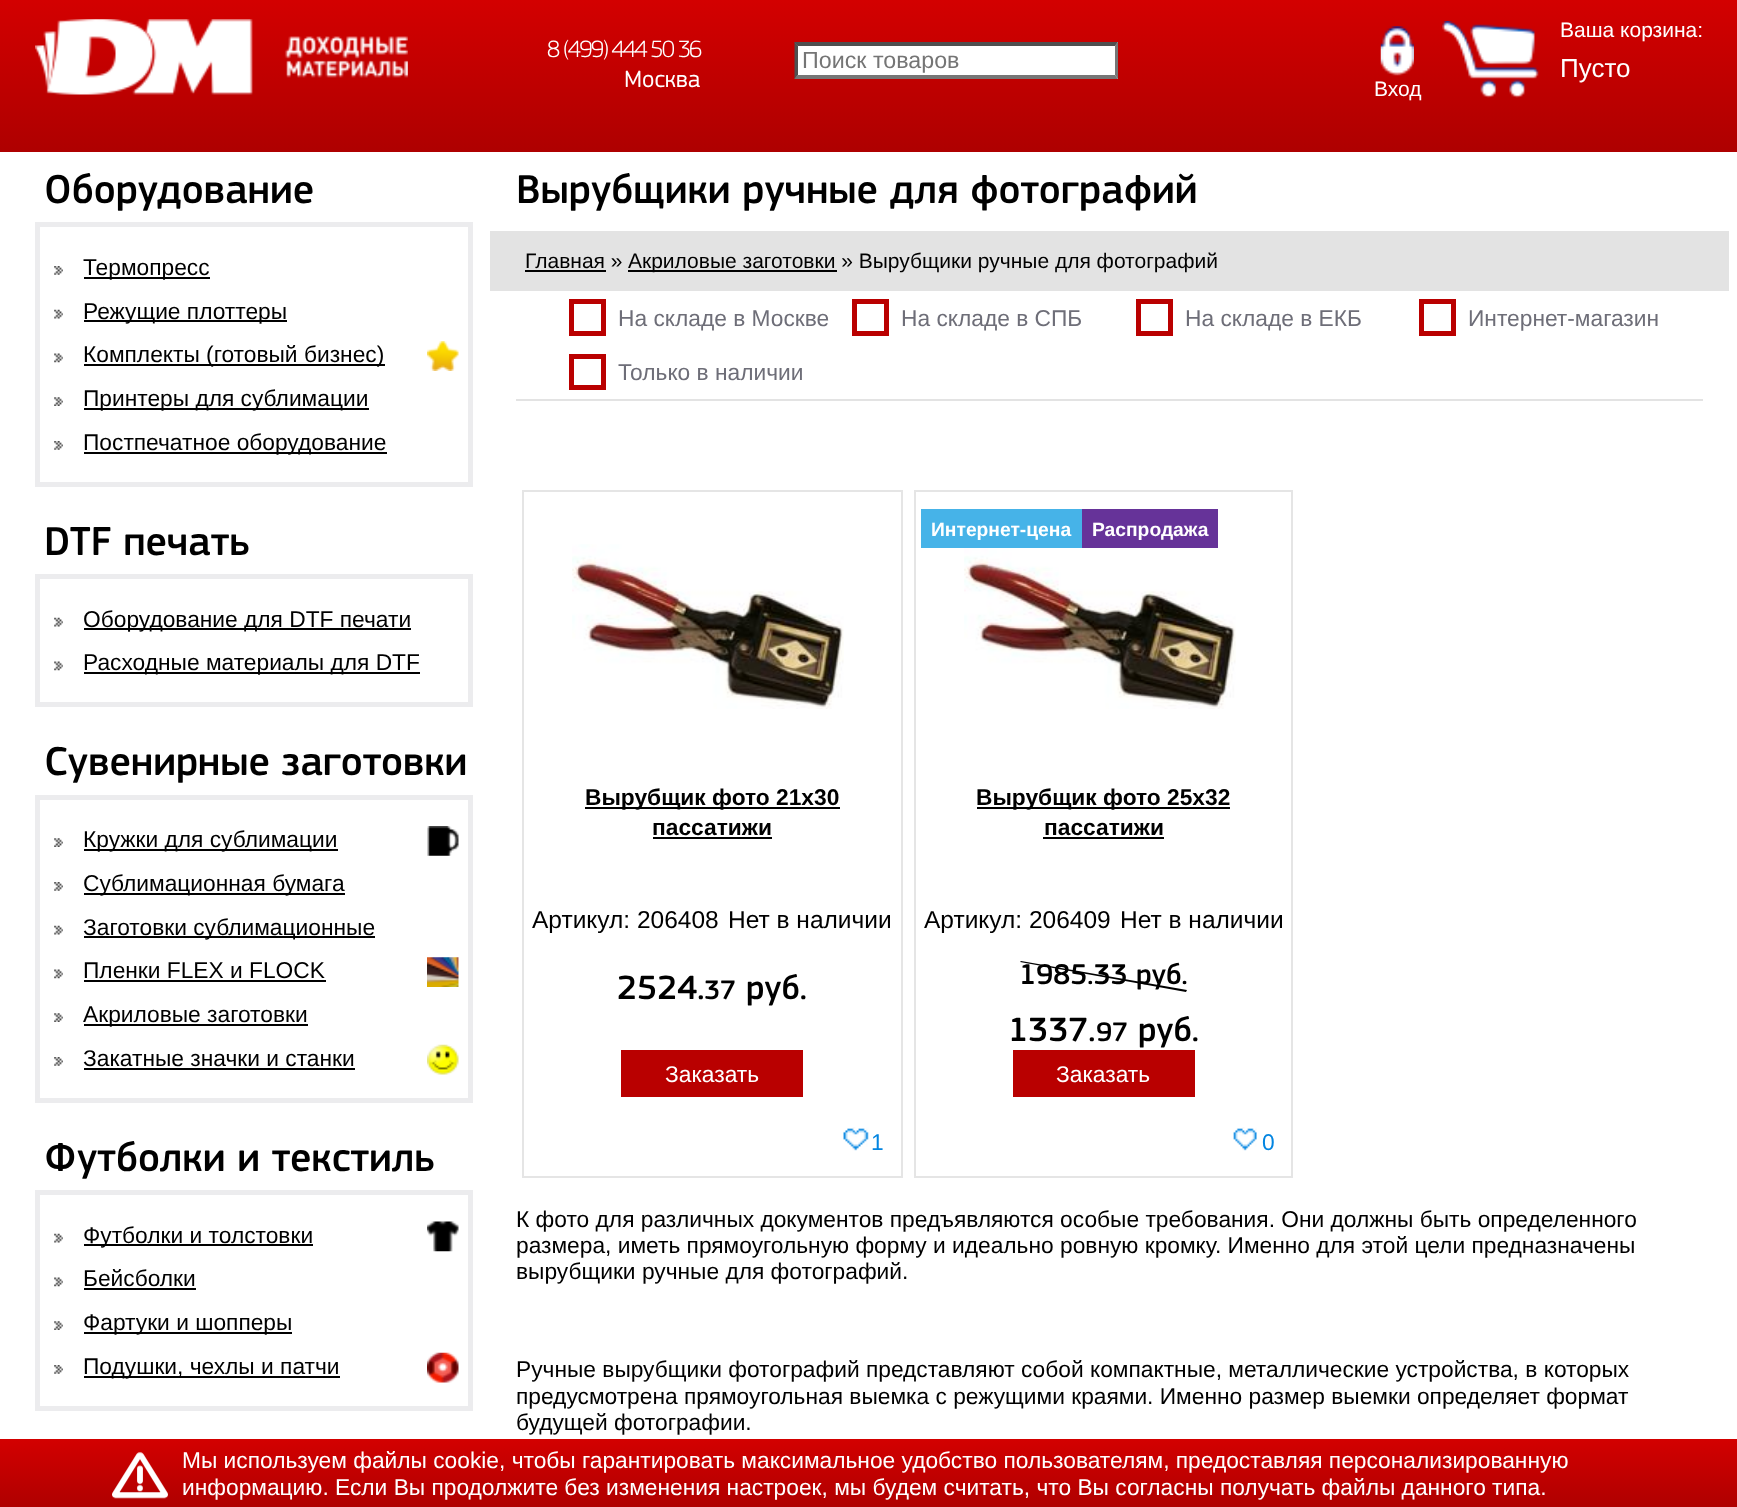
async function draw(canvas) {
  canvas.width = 1737
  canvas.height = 1507
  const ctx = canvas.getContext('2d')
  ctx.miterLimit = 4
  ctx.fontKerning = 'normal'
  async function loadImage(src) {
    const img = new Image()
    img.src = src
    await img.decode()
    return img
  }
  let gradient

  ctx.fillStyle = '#fff'
  ctx.fillRect(0, 0, 1737, 1507)
  gradient = ctx.createLinearGradient(869, 152, 869, 0)
  gradient.addColorStop(0, '#ae0000')
  gradient.addColorStop(1, '#d30000')
  ctx.fillStyle = gradient
  ctx.fillRect(0, 0, 1737, 152)
  ctx.drawImage(await loadImage('image0.png'), 35, 19, 373, 76)
  ctx.letterSpacing = '-1.75px'
  ctx.font = '300 24.5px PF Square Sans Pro'
  ctx.fillStyle = '#fff'
  ctx.fillText('8 (499) 444 50 36', 547, 57)
  ctx.letterSpacing = '0px'
  ctx.font = '24.5px PF Square Sans Pro'
  ctx.fillText('Москва', 624, 87)
  ctx.fillRect(795, 42, 323, 37)
  ctx.fillStyle = '#4f4f4f'
  ctx.beginPath()
  ctx.moveTo(794, 42)
  ctx.lineTo(1118, 42)
  ctx.lineTo(1115, 46)
  ctx.lineTo(798, 46)
  ctx.closePath()
  ctx.fill()
  ctx.fillStyle = '#767676'
  ctx.beginPath()
  ctx.moveTo(1118, 42)
  ctx.lineTo(1118, 79)
  ctx.lineTo(1115, 75)
  ctx.lineTo(1115, 45.5)
  ctx.closePath()
  ctx.fill()
  ctx.beginPath()
  ctx.moveTo(1118, 79)
  ctx.lineTo(794, 79)
  ctx.lineTo(798, 75)
  ctx.lineTo(1115, 75)
  ctx.closePath()
  ctx.fill()
  ctx.fillStyle = '#4f4f4f'
  ctx.beginPath()
  ctx.moveTo(794.5, 79)
  ctx.lineTo(794.5, 42)
  ctx.lineTo(798, 45.5)
  ctx.lineTo(798, 75)
  ctx.closePath()
  ctx.fill()
  ctx.font = '23.25px Liberation Sans'
  ctx.fillStyle = '#757575'
  ctx.fillText('Поиск товаров', 802, 68)
  ctx.drawImage(await loadImage('image1.png'), 1442, 21, 97, 77)
  ctx.font = '21px Liberation Sans'
  ctx.fillStyle = '#fff'
  ctx.fillText('Ваша корзина:', 1560, 37)
  ctx.font = '26px Liberation Sans'
  ctx.fillText('Пусто', 1560, 77)
  ctx.drawImage(await loadImage('image2.png'), 1380, 26, 34, 50)
  ctx.font = '21px Liberation Sans'
  ctx.fillText('Вход', 1374, 96)
  ctx.font = '500 42px PF Square Sans Pro'
  ctx.fillStyle = '#000'
  ctx.fillText('Оборудование', 44, 203)
  ctx.strokeStyle = '#ececee'
  ctx.lineWidth = 5
  ctx.strokeRect(37.5, 224.5, 433, 260)
  ctx.drawImage(await loadImage('image3.png'), 54, 266, 9, 9)
  ctx.fillRect(84, 277, 126, 2)
  ctx.font = '22.75px Liberation Sans'
  ctx.fillText('Термопресс', 83, 275)
  ctx.drawImage(await loadImage('image4.png'), 54, 309, 9, 10)
  ctx.fillRect(84, 320, 203, 2)
  ctx.fillText('Режущие плоттеры', 83, 319)
  ctx.drawImage(await loadImage('image5.png'), 54, 353, 9, 10)
  ctx.fillRect(84, 364, 301, 2)
  ctx.fillText('Комплекты (готовый бизнес)', 83, 362)
  ctx.drawImage(await loadImage('image6.png'), 427, 341, 32, 30)
  ctx.drawImage(await loadImage('image7.png'), 54, 397, 9, 9)
  ctx.fillRect(84, 408, 285, 2)
  ctx.fillText('Принтеры для сублимации', 83, 406)
  ctx.drawImage(await loadImage('image3.png'), 54, 441, 9, 9)
  ctx.fillRect(84, 452, 303, 2)
  ctx.fillText('Постпечатное оборудование', 83, 450)
  ctx.font = '500 42px PF Square Sans Pro'
  ctx.fillText('DTF печать', 44, 555)
  ctx.strokeRect(37.5, 576.5, 433, 128)
  ctx.drawImage(await loadImage('image4.png'), 54, 617, 9, 10)
  ctx.fillRect(84, 628, 327, 2)
  ctx.font = '22.75px Liberation Sans'
  ctx.fillText('Оборудование для DTF печати', 83, 627)
  ctx.drawImage(await loadImage('image5.png'), 54, 661, 9, 10)
  ctx.fillRect(84, 672, 336, 2)
  ctx.fillText('Расходные материалы для DTF', 83, 670)
  ctx.font = '500 42px PF Square Sans Pro'
  ctx.fillText('Сувенирные заготовки', 44, 775)
  ctx.strokeRect(37.5, 797.5, 433, 303)
  ctx.drawImage(await loadImage('image7.png'), 54, 838, 9, 9)
  ctx.fillRect(84, 849, 254, 2)
  ctx.font = '22.75px Liberation Sans'
  ctx.fillText('Кружки для сублимации', 83, 847)
  ctx.drawImage(await loadImage('image8.png'), 427, 826, 32, 30)
  ctx.drawImage(await loadImage('image3.png'), 54, 882, 9, 9)
  ctx.fillRect(84, 893, 261, 2)
  ctx.fillText('Сублимационная бумага', 83, 891)
  ctx.drawImage(await loadImage('image4.png'), 54, 925, 9, 10)
  ctx.fillRect(84, 936, 291, 2)
  ctx.fillText('Заготовки сублимационные', 83, 935)
  ctx.drawImage(await loadImage('image5.png'), 54, 969, 9, 10)
  ctx.fillText('Пленки FLEX и FLOCK', 83, 978)
  ctx.fillRect(84, 980, 242, 2)
  ctx.drawImage(await loadImage('image9.png'), 427, 957, 32, 30)
  ctx.drawImage(await loadImage('image7.png'), 54, 1013, 9, 9)
  ctx.fillRect(84, 1024, 224, 2)
  ctx.fillText('Акриловые заготовки', 83, 1022)
  ctx.drawImage(await loadImage('image3.png'), 54, 1057, 9, 9)
  ctx.fillText('Закатные значки и станки', 83, 1066)
  ctx.fillRect(84, 1068, 271, 2)
  ctx.drawImage(await loadImage('image10.png'), 427, 1044, 32, 31)
  ctx.font = '500 42px PF Square Sans Pro'
  ctx.fillText('Футболки и текстиль', 44, 1171)
  ctx.strokeRect(37.5, 1192.5, 433, 216)
  ctx.drawImage(await loadImage('image4.png'), 54, 1233, 9, 10)
  ctx.fillRect(84, 1244, 229, 2)
  ctx.font = '22.75px Liberation Sans'
  ctx.fillText('Футболки и толстовки', 83, 1243)
  ctx.drawImage(await loadImage('image11.png'), 427, 1221, 32, 31)
  ctx.drawImage(await loadImage('image5.png'), 54, 1277, 9, 10)
  ctx.fillText('Бейсболки', 83, 1286)
  ctx.fillRect(84, 1288, 112, 2)
  ctx.drawImage(await loadImage('image7.png'), 54, 1321, 9, 9)
  ctx.fillRect(84, 1332, 208, 2)
  ctx.fillText('Фартуки и шопперы', 83, 1330)
  ctx.drawImage(await loadImage('image3.png'), 54, 1365, 9, 9)
  ctx.fillRect(84, 1376, 256, 2)
  ctx.fillText('Подушки, чехлы и патчи', 83, 1374)
  ctx.drawImage(await loadImage('image12.png'), 427, 1352, 32, 31)
  ctx.font = '500 42px PF Square Sans Pro'
  ctx.fillText('Вырубщики ручные для фотографий', 516, 203)
  ctx.fillStyle = '#e3e3e3'
  ctx.fillRect(490, 231, 1239, 60)
  ctx.font = '21px Liberation Sans'
  ctx.fillStyle = '#000'
  ctx.fillText('Главная »', 525, 268)
  ctx.fillRect(525, 270, 81, 2)
  ctx.fillRect(628, 270, 209, 2)
  ctx.fillText('Акриловые заготовки » Вырубщики ручные для фотографий', 628, 268)
  ctx.fillStyle = '#e3e3e3'
  ctx.fillRect(516, 399, 1187, 2)
  ctx.strokeStyle = '#ba0000'
  ctx.strokeRect(571.5, 301.5, 32, 32)
  ctx.font = '22.75px Liberation Sans'
  ctx.fillStyle = '#6e6e78'
  ctx.fillText('На складе в Москве', 618, 326)
  ctx.strokeRect(854.5, 301.5, 32, 32)
  ctx.fillText('На складе в СПБ', 901, 326)
  ctx.strokeRect(1138.5, 301.5, 32, 32)
  ctx.fillText('На складе в ЕКБ', 1185, 326)
  ctx.strokeRect(1421.5, 301.5, 32, 32)
  ctx.fillText('Интернет-магазин', 1468, 326)
  ctx.strokeRect(571.5, 356.5, 32, 31)
  ctx.fillText('Только в наличии', 618, 380)
  ctx.strokeStyle = '#e5e5e5'
  ctx.lineWidth = 2
  ctx.strokeRect(523, 491, 379, 686)
  ctx.drawImage(await loadImage('image13.png'), 572, 544, 272, 165)
  ctx.fillStyle = '#000'
  ctx.fillRect(585, 807, 255, 2)
  ctx.font = 'bold 22.75px Liberation Sans'
  ctx.fillText('Вырубщик фото 21х30', 585, 805)
  ctx.fillText('пассатижи', 652, 835)
  ctx.fillRect(653, 837, 119, 2)
  ctx.font = '24.5px Liberation Sans'
  ctx.fillText('Артикул: 206408', 532, 928)
  ctx.fillText('Нет в наличии', 728, 928)
  ctx.drawImage(await loadImage('image14.png'), 843, 1127, 26, 24)
  ctx.font = '22.75px Liberation Sans'
  ctx.fillStyle = '#0385e1'
  ctx.fillText('1', 871, 1150)
  ctx.font = '500 35px PF Square Sans Pro'
  ctx.fillStyle = '#000'
  ctx.fillText('2524.', 617, 999)
  ctx.font = '500 28px PF Square Sans Pro'
  ctx.fillText('37', 704, 999)
  ctx.font = '500 35px PF Square Sans Pro'
  ctx.fillText('руб.', 746, 999)
  ctx.fillStyle = '#b90000'
  ctx.fillRect(621, 1050, 182, 47)
  ctx.font = '22.75px Liberation Sans'
  ctx.fillStyle = '#fff'
  ctx.fillText('Заказать', 665, 1082)
  ctx.strokeRect(915, 491, 377, 686)
  ctx.drawImage(await loadImage('image15.png'), 964, 544, 272, 165)
  ctx.fillStyle = '#46b3e8'
  ctx.fillRect(921, 509, 161, 39)
  ctx.font = 'bold 19.25px Liberation Sans'
  ctx.fillStyle = '#fff'
  ctx.fillText('Интернет-цена', 931, 536)
  ctx.fillStyle = '#639'
  ctx.fillRect(1082, 509, 136, 39)
  ctx.fillStyle = '#fff'
  ctx.fillText('Распродажа', 1092, 536)
  ctx.fillStyle = '#000'
  ctx.beginPath()
  ctx.moveTo(1021, 961)
  ctx.lineTo(1187, 990)
  ctx.lineTo(1186, 992)
  ctx.lineTo(1020, 962)
  ctx.closePath()
  ctx.fill()
  ctx.font = '500 29.75px PF Square Sans Pro'
  ctx.fillText('1985.33 руб.', 1019, 984)
  ctx.font = '500 35px PF Square Sans Pro'
  ctx.fillText('1337.', 1008, 1041)
  ctx.font = '500 28px PF Square Sans Pro'
  ctx.fillText('97', 1096, 1041)
  ctx.font = '500 35px PF Square Sans Pro'
  ctx.fillText('руб.', 1138, 1041)
  ctx.fillRect(977, 807, 253, 2)
  ctx.font = 'bold 22.75px Liberation Sans'
  ctx.fillText('Вырубщик фото 25х32', 976, 805)
  ctx.fillText('пассатижи', 1044, 835)
  ctx.fillRect(1043, 837, 121, 2)
  ctx.font = '24.5px Liberation Sans'
  ctx.fillText('Артикул: 206409', 924, 928)
  ctx.fillText('Нет в наличии', 1120, 928)
  ctx.drawImage(await loadImage('image16.png'), 1233, 1127, 24, 24)
  ctx.font = '22.75px Liberation Sans'
  ctx.fillStyle = '#0385e1'
  ctx.fillText('0', 1262, 1150)
  ctx.fillStyle = '#b90000'
  ctx.fillRect(1013, 1050, 182, 47)
  ctx.fillStyle = '#fff'
  ctx.fillText('Заказать', 1056, 1082)
  ctx.fillStyle = '#000'
  ctx.fillText('К фото для различных документов предъявляются особые требования. Они должны быть определенного', 516, 1227)
  ctx.fillText('размера, иметь прямоугольную форму и идеально ровную кромку. Именно для этой цели предназначены', 516, 1253)
  ctx.fillText('вырубщики ручные для фотографий.', 516, 1279)
  ctx.fillText('Ручные вырубщики фотографий представляют собой компактные, металлические устройства, в которых', 516, 1377)
  ctx.fillText('предусмотрена прямоугольная выемка с режущими краями. Именно размер выемки определяет формат', 516, 1404)
  ctx.fillText('будущей фотографии.', 516, 1430)
  gradient = ctx.createLinearGradient(869, 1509, 869, 1439)
  gradient.addColorStop(0, '#ae0000')
  gradient.addColorStop(1, '#d30000')
  ctx.fillStyle = gradient
  ctx.fillRect(0, 1439, 1737, 68)
  ctx.drawImage(await loadImage('image17.png'), 112, 1452, 56, 47)
  ctx.fillStyle = '#fff'
  ctx.fillText('Мы используем файлы cookie, чтобы гарантировать максимальное удобство пользователям, предоставляя персонализированную', 182, 1468)
  ctx.fillText('информацию. Если Вы продолжите без изменения настроек, мы будем считать, что Вы согласны получать файлы данного типа.', 182, 1495)
}

draw(document.querySelector('canvas'))
